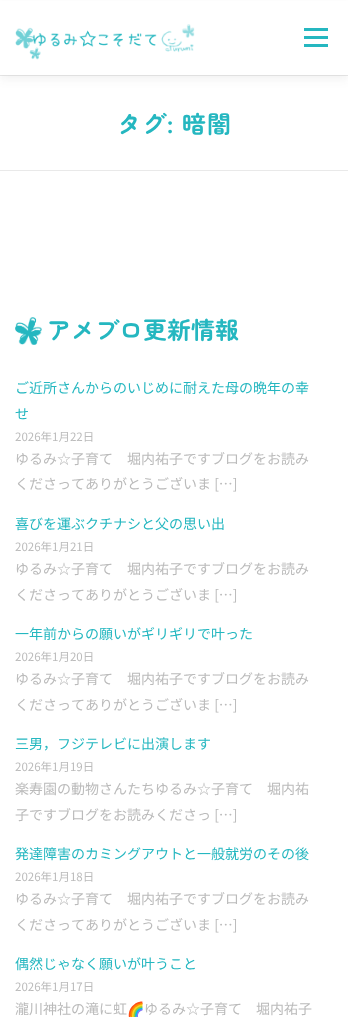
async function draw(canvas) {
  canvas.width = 348
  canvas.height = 1017
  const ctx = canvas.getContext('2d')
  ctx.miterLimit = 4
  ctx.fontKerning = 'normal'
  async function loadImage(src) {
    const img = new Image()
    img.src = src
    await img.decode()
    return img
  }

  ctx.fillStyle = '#fff'
  ctx.fillRect(0, 0, 348, 1017)
  ctx.fillStyle = '#e9e9e9'
  ctx.fillRect(0, 75, 348, 1)
  ctx.fillStyle = '#3232320f'
  ctx.filter = 'blur(5px)'
  ctx.beginPath()
  ctx.rect(0, 5, 348, 75)
  ctx.fill()
  ctx.filter = 'none'
  ctx.fillStyle = '#fff'
  ctx.fillRect(0, 1, 348, 74)
  ctx.drawImage(await loadImage('image0.png'), 15, 24, 180, 36)
  ctx.fillStyle = '#25b7c0'
  ctx.fillRect(304, 36, 24, 3)
  ctx.fillRect(304, 28, 24, 3)
  ctx.fillRect(304, 44, 24, 3)
  ctx.fillStyle = '#e9e9e9'
  ctx.fillRect(0, 170, 348, 1)
  ctx.letterSpacing = '1px'
  ctx.font = 'bold 24px Zen Maru Gothic'
  ctx.fillStyle = '#25b7c0'
  ctx.fillText('タグ: 暗闇', 117, 133)
  ctx.drawImage(await loadImage('image1.png'), 15, 317, 27, 28)
  ctx.letterSpacing = '0px'
  ctx.fillText('アメブロ更新情報', 47, 339)
  ctx.font = '14px Noto Sans JP'
  ctx.fillText('ご近所さんからのいじめに耐えた母の晩年の幸', 15, 393)
  ctx.fillText('せ', 15, 419)
  ctx.font = '11.5px Noto Sans JP'
  ctx.fillStyle = '#bbb'
  ctx.fillText('2026年1月22日', 15, 441)
  ctx.font = '14px Noto Sans JP'
  ctx.fillText('ゆるみ☆子育て　堀内祐子ですブログをお読み', 15, 464)
  ctx.fillText('くださってありがとうございま […]', 15, 489)
  ctx.fillStyle = '#25b7c0'
  ctx.fillText('喜びを運ぶクチナシと父の思い出', 15, 529)
  ctx.font = '11.5px Noto Sans JP'
  ctx.fillStyle = '#bbb'
  ctx.fillText('2026年1月21日', 15, 551)
  ctx.font = '14px Noto Sans JP'
  ctx.fillText('ゆるみ☆子育て　堀内祐子ですブログをお読み', 15, 574)
  ctx.fillText('くださってありがとうございま […]', 15, 600)
  ctx.fillStyle = '#25b7c0'
  ctx.fillText('一年前からの願いがギリギリで叶った', 15, 639)
  ctx.font = '11.5px Noto Sans JP'
  ctx.fillStyle = '#bbb'
  ctx.fillText('2026年1月20日', 15, 661)
  ctx.font = '14px Noto Sans JP'
  ctx.fillText('ゆるみ☆子育て　堀内祐子ですブログをお読み', 15, 684)
  ctx.fillText('くださってありがとうございま […]', 15, 710)
  ctx.fillStyle = '#25b7c0'
  ctx.fillText('三男，フジテレビに出演します', 15, 749)
  ctx.font = '11.5px Noto Sans JP'
  ctx.fillStyle = '#bbb'
  ctx.fillText('2026年1月19日', 15, 771)
  ctx.font = '14px Noto Sans JP'
  ctx.fillText('楽寿園の動物さんたちゆるみ☆子育て　堀内祐', 15, 794)
  ctx.fillText('子ですブログをお読みくださっ […]', 15, 820)
  ctx.fillStyle = '#25b7c0'
  ctx.fillText('発達障害のカミングアウトと一般就労のその後', 15, 859)
  ctx.font = '11.5px Noto Sans JP'
  ctx.fillStyle = '#bbb'
  ctx.fillText('2026年1月18日', 15, 881)
  ctx.font = '14px Noto Sans JP'
  ctx.fillText('ゆるみ☆子育て　堀内祐子ですブログをお読み', 15, 904)
  ctx.fillText('くださってありがとうございま […]', 15, 930)
  ctx.fillStyle = '#25b7c0'
  ctx.fillText('偶然じゃなく願いが叶うこと', 15, 969)
  ctx.font = '11.5px Noto Sans JP'
  ctx.fillStyle = '#bbb'
  ctx.fillText('2026年1月17日', 15, 991)
  ctx.font = '14px Noto Sans JP'
  ctx.fillText('瀧川神社の滝に虹', 15, 1014)
  ctx.font = '14px Noto Color Emoji'
  ctx.fillText('🌈', 127, 1014)
  ctx.font = '14px Noto Sans JP'
  ctx.fillText('ゆるみ☆子育て　堀内祐子', 144, 1014)
}

draw(document.querySelector('canvas'))
